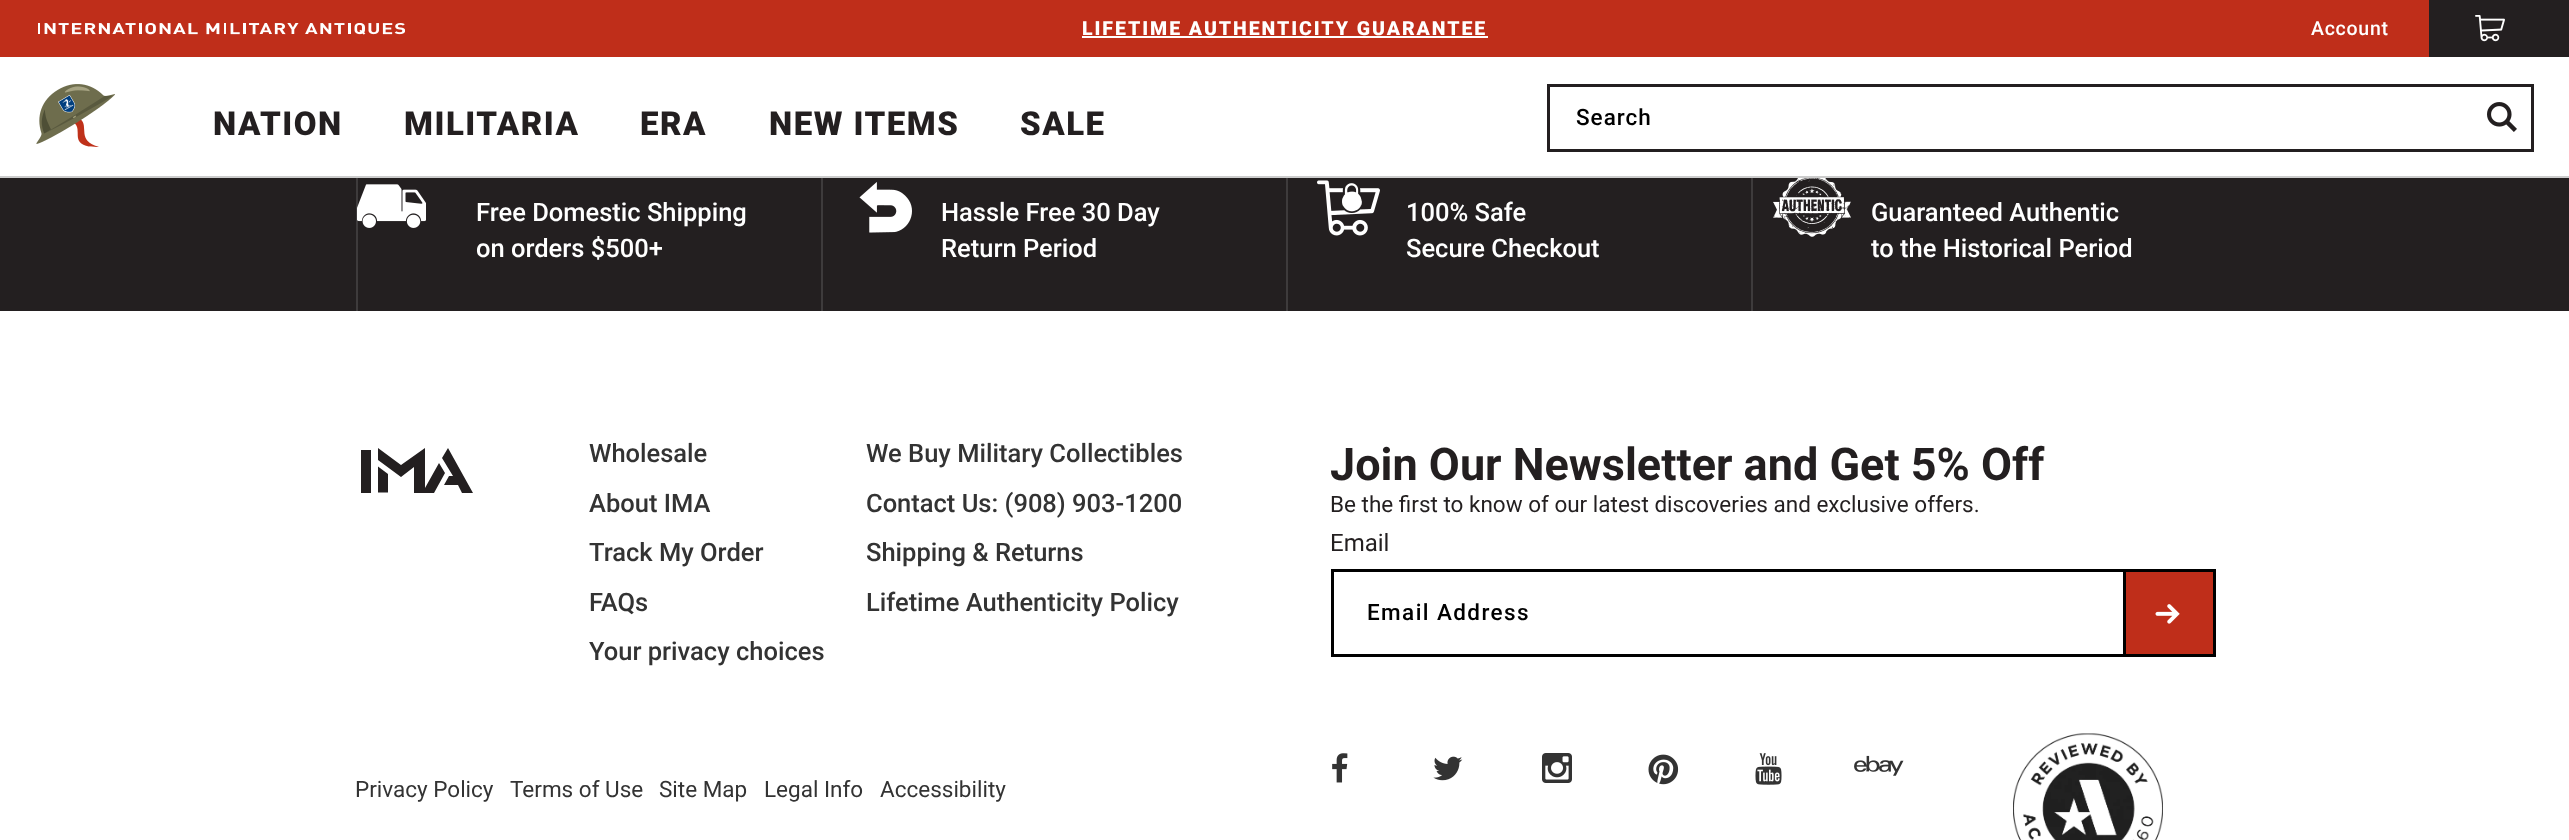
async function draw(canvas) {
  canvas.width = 2569
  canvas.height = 840
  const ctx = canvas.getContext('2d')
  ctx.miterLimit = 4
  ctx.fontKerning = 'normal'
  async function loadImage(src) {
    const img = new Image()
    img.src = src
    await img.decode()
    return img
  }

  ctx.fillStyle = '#fff'
  ctx.fillRect(0, 0, 2569, 840)
  ctx.fillStyle = '#ccc'
  ctx.fillRect(0, 176, 2569, 2)
  ctx.fillStyle = '#bf2e1a'
  ctx.fillRect(0, 0, 2429, 57)
  ctx.drawImage(await loadImage('image0.png'), 38, 23, 367, 12)
  ctx.letterSpacing = '1.95px'
  ctx.font = '900 19.5px Roboto'
  ctx.fillStyle = '#fff'
  ctx.fillText('LIFETIME AUTHENTICITY GUARANTEE', 1082, 35)
  ctx.fillRect(1082, 36, 406, 2)
  ctx.letterSpacing = '0.75px'
  ctx.font = '500 19.5px Roboto'
  ctx.fillText('Account', 2311, 35)
  ctx.fillStyle = '#231f20'
  ctx.fillRect(2429, 0, 140, 57)
  ctx.drawImage(await loadImage('image1.png'), 2475, 15, 30, 27)
  ctx.drawImage(await loadImage('image2.png'), 36, 84, 79, 63)
  ctx.letterSpacing = '1.5px'
  ctx.font = '900 33px Roboto'
  ctx.fillText('NATION', 213, 135)
  ctx.fillText('MILITARIA', 404, 135)
  ctx.fillText('ERA', 640, 135)
  ctx.fillText('NEW ITEMS', 769, 135)
  ctx.fillText('SALE', 1020, 135)
  ctx.strokeStyle = '#231f20'
  ctx.lineWidth = 3
  ctx.strokeRect(1548.5, 85.5, 984, 65)
  ctx.letterSpacing = '1px'
  ctx.font = '500 22.5px Roboto'
  ctx.fillStyle = '#000'
  ctx.fillText('Search', 1576, 125)
  ctx.drawImage(await loadImage('image3.png'), 2487, 102, 30, 30)
  ctx.fillStyle = '#231f20'
  ctx.fillRect(0, 178, 2569, 133)
  ctx.fillStyle = '#3e3b3c'
  ctx.fillRect(356, 178, 2, 133)
  ctx.drawImage(await loadImage('image4.png'), 357, 184, 69, 44)
  ctx.letterSpacing = '0px'
  ctx.font = '500 25.5px Roboto'
  ctx.fillStyle = '#fff'
  ctx.fillText('Free Domestic Shipping', 476, 221)
  ctx.fillText('on orders $500+', 476, 257)
  ctx.fillStyle = '#3e3b3c'
  ctx.fillRect(821, 178, 2, 133)
  ctx.drawImage(await loadImage('image5.png'), 859, 182, 53, 51)
  ctx.fillStyle = '#fff'
  ctx.fillText('Hassle Free 30 Day', 941, 221)
  ctx.fillText('Return Period', 941, 257)
  ctx.fillStyle = '#3e3b3c'
  ctx.fillRect(1286, 178, 2, 133)
  ctx.drawImage(await loadImage('image6.png'), 1317, 180, 63, 56)
  ctx.fillStyle = '#fff'
  ctx.fillText('100% Safe', 1406, 221)
  ctx.fillText('Secure Checkout', 1406, 257)
  ctx.fillStyle = '#3e3b3c'
  ctx.fillRect(1751, 178, 2, 133)
  ctx.drawImage(await loadImage('image7.png'), 1773, 178, 78, 59)
  ctx.fillStyle = '#fff'
  ctx.fillText('Guaranteed Authentic', 1871, 221)
  ctx.fillText('to the Historical Period', 1871, 257)
  ctx.fillStyle = '#231f20'
  ctx.fillRect(361, 450, 10, 43)
  ctx.beginPath()
  ctx.moveTo(378, 492.5)
  ctx.lineTo(388, 492.5)
  ctx.lineTo(388, 474)
  ctx.lineTo(378, 466.5)
  ctx.closePath()
  ctx.fill()
  ctx.beginPath()
  ctx.moveTo(439, 463)
  ctx.lineTo(425, 488)
  ctx.lineTo(425, 448)
  ctx.lineTo(401, 465)
  ctx.lineTo(378, 448)
  ctx.lineTo(378, 460)
  ctx.lineTo(401, 477)
  ctx.lineTo(414, 467)
  ctx.lineTo(414, 493)
  ctx.lineTo(434, 493)
  ctx.lineTo(445, 473)
  ctx.closePath()
  ctx.fill()
  ctx.beginPath()
  ctx.moveTo(448, 448)
  ctx.lineTo(442, 458)
  ctx.lineTo(453, 476)
  ctx.lineTo(449, 476)
  ctx.lineTo(444, 485)
  ctx.lineTo(458, 485)
  ctx.lineTo(462, 493)
  ctx.lineTo(473, 493)
  ctx.closePath()
  ctx.fill()
  ctx.fillStyle = '#333'
  ctx.fillText('Wholesale', 589, 462)
  ctx.fillText('We Buy Military Collectibles', 866, 462)
  ctx.fillText('About IMA', 589, 512)
  ctx.fillText('Contact Us: (908) 903-1200', 866, 512)
  ctx.fillText('Track My Order', 589, 561)
  ctx.fillText('Shipping & Returns', 866, 561)
  ctx.fillText('FAQs', 589, 611)
  ctx.fillText('Lifetime Authenticity Policy', 866, 611)
  ctx.fillText('Your privacy choices', 589, 660)
  ctx.font = 'bold 45px Roboto'
  ctx.fillStyle = '#231f20'
  ctx.fillText('Join Our Newsletter and Get 5% Off', 1330, 480)
  ctx.font = '22.5px Roboto'
  ctx.fillText('Be the first to know of our latest discoveries and exclusive offers.', 1330, 512)
  ctx.font = '24px Roboto'
  ctx.fillText('Email', 1330, 551)
  ctx.strokeStyle = '#000'
  ctx.strokeRect(1332.5, 570.5, 882, 85)
  ctx.letterSpacing = '1.4px'
  ctx.font = '500 22.5px Roboto'
  ctx.fillStyle = '#000'
  ctx.fillText('Email Address', 1367, 620)
  ctx.fillStyle = '#bf2e1a'
  ctx.fillRect(2126, 572, 87, 82)
  ctx.fillStyle = '#000'
  ctx.fillRect(2123, 572, 3, 82)
  ctx.drawImage(await loadImage('image8.png'), 2155, 604, 25, 20)
  ctx.letterSpacing = '0px'
  ctx.font = '22.5px Roboto'
  ctx.fillStyle = '#333'
  ctx.fillText('Privacy Policy', 355, 797)
  ctx.fillText('Terms of Use', 510, 797)
  ctx.fillText('Site Map', 659, 797)
  ctx.fillText('Legal Info', 764, 797)
  ctx.fillText('Accessibility', 880, 797)
  ctx.drawImage(await loadImage('image9.png'), 1332, 753, 16, 30)
  ctx.drawImage(await loadImage('image10.png'), 1433, 756, 30, 25)
  ctx.drawImage(await loadImage('image11.png'), 1542, 753, 30, 30)
  ctx.drawImage(await loadImage('image12.png'), 1648, 754, 31, 31)
  ctx.drawImage(await loadImage('image13.png'), 1755, 753, 27, 32)
  ctx.drawImage(await loadImage('image14.png'), 1854, 755, 50, 21)
  ctx.drawImage(await loadImage('image15.png'), 2013, 733, 150, 107)
}

draw(document.querySelector('canvas'))
